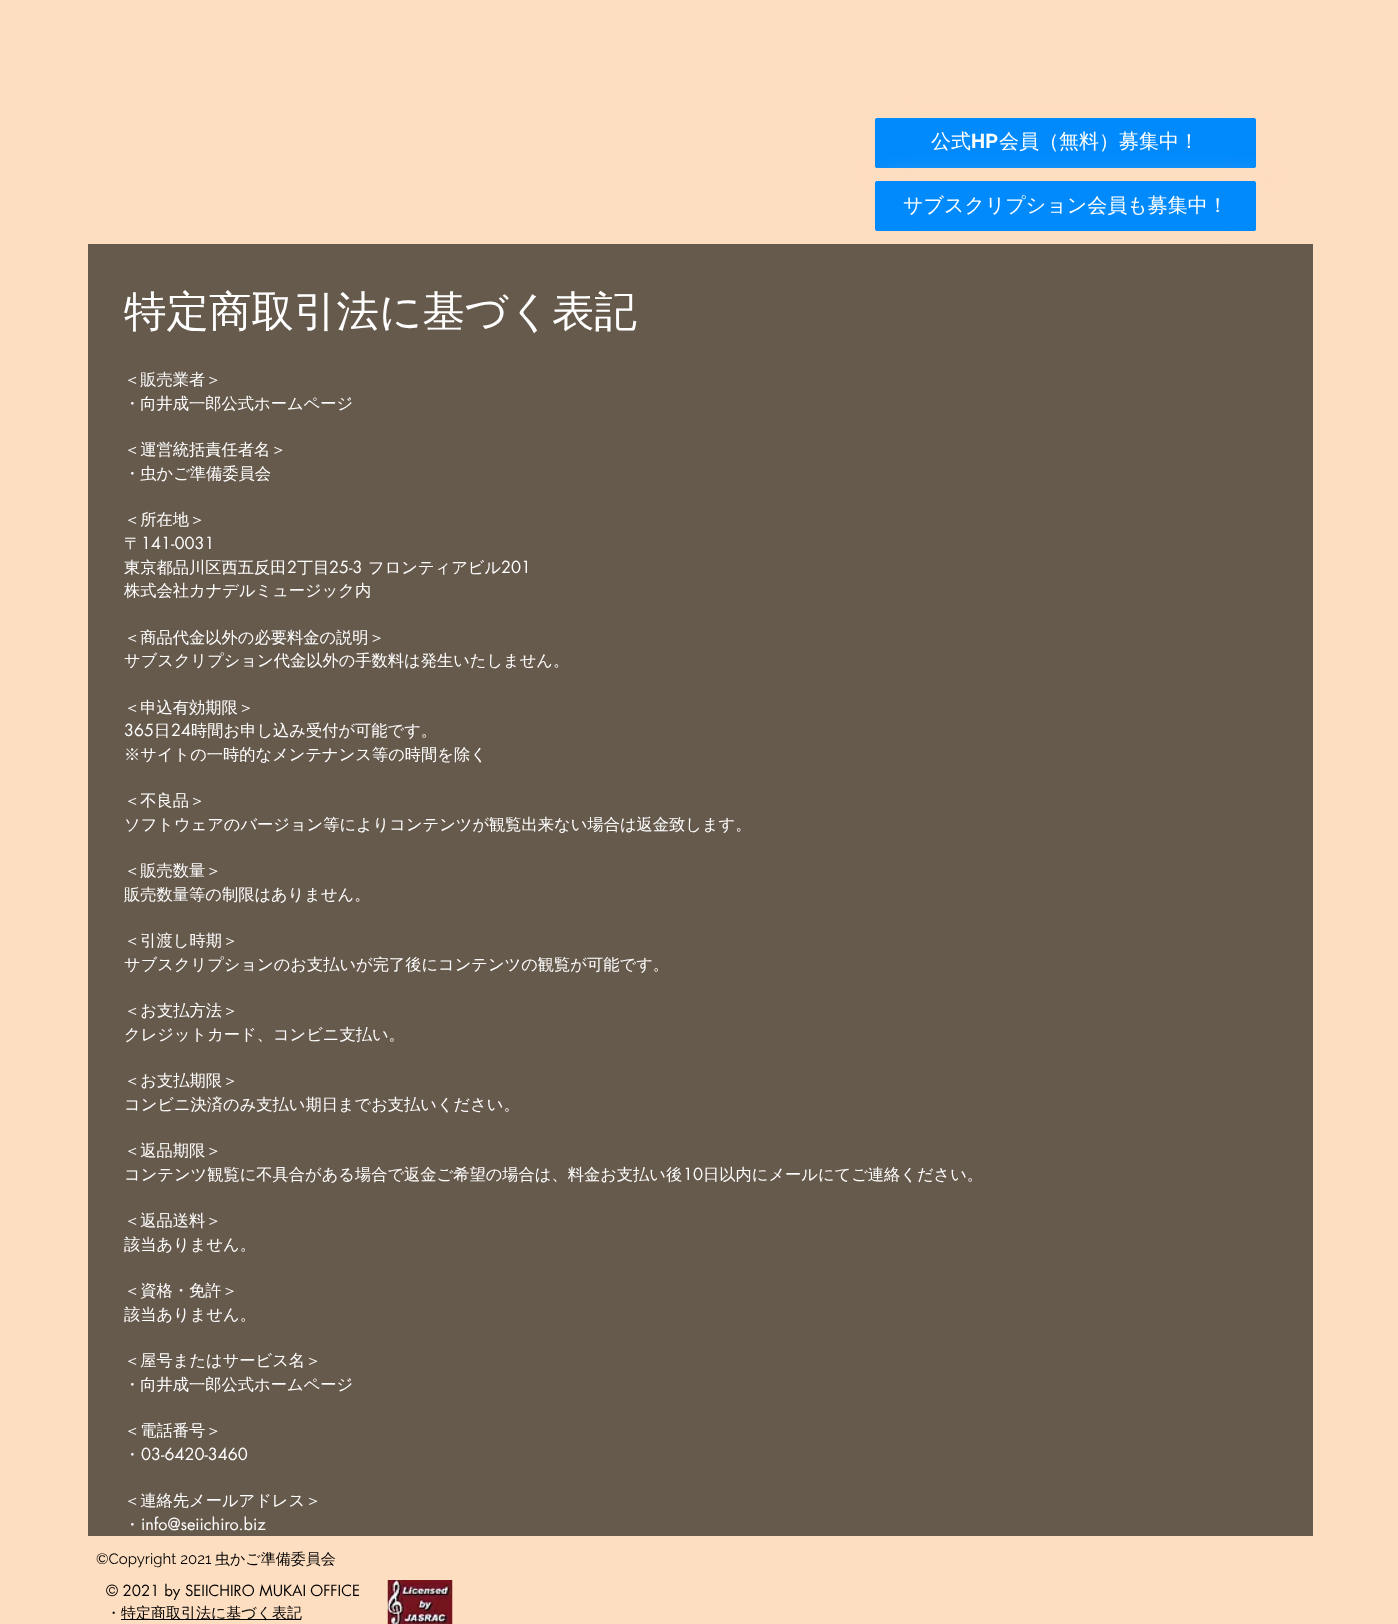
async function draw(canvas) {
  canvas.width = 1398
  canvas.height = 1624
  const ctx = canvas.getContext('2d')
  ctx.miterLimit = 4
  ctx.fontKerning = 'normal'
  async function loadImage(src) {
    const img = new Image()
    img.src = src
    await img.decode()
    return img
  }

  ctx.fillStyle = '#fedec1'
  ctx.fillRect(0, 0, 1398, 1624)
  ctx.beginPath()
  ctx.roundRect(875.5, 118.5, 380, 49, 2)
  ctx.strokeStyle = '#008afcfc'
  ctx.stroke()
  ctx.filter = 'blur(16px)'
  ctx.beginPath()
  ctx.rect(884, 126, 374, 43)
  ctx.fill()
  ctx.filter = 'none'
  ctx.fillStyle = '#008afc'
  ctx.beginPath()
  ctx.roundRect(875, 118, 381, 50, 2.5)
  ctx.fill()
  ctx.beginPath()
  ctx.roundRect(875.5, 118.5, 380, 49, 2)
  ctx.stroke()
  ctx.font = '500 20px WenQuanYi Zen Hei'
  ctx.fillStyle = '#fff'
  ctx.fillText('公式', 931, 148)
  ctx.font = 'bold 20px Roboto'
  ctx.fillText('HP', 971, 148)
  ctx.font = '500 20px WenQuanYi Zen Hei'
  ctx.fillText('会員（無料）募集中！', 999, 148)
  ctx.fillStyle = '#fedec1'
  ctx.filter = 'blur(16px)'
  ctx.beginPath()
  ctx.rect(884, 190, 374, 43)
  ctx.fill()
  ctx.filter = 'none'
  ctx.fillStyle = '#008afc'
  ctx.beginPath()
  ctx.roundRect(875, 181, 381, 50, 2.5)
  ctx.fill()
  ctx.beginPath()
  ctx.roundRect(875.5, 181.5, 380, 49, 2)
  ctx.stroke()
  ctx.fillStyle = '#fff'
  ctx.fillText('サブスクリプション会員も募集中！', 903, 212)
  ctx.fillStyle = '#665a4d'
  ctx.fillRect(88, 244, 1225, 1292)
  ctx.font = '500 42.5px WenQuanYi Zen Hei'
  ctx.fillStyle = '#fff'
  ctx.fillText('特定商取引法に基づく表記', 124, 326)
  ctx.font = '500 16.25px WenQuanYi Zen Hei'
  ctx.fillText('＜販売業者＞', 124, 385)
  ctx.fillText('・向井成一郎公式ホームページ', 124, 409)
  ctx.fillText('＜運営統括責任者名＞', 124, 455)
  ctx.fillText('・虫かご準備委員会', 124, 479)
  ctx.fillText('＜所在地＞', 124, 525)
  ctx.fillText('〒', 124, 549)
  ctx.font = '16.25px futura'
  ctx.fillText('141-0031', 141, 549)
  ctx.font = '500 16.25px WenQuanYi Zen Hei'
  ctx.fillText('東京都品川区西五反田', 124, 573)
  ctx.font = '16.25px futura'
  ctx.fillText('2', 287, 573)
  ctx.font = '500 16.25px WenQuanYi Zen Hei'
  ctx.fillText('丁目', 297, 573)
  ctx.font = '16.25px futura'
  ctx.fillText('25-3', 329, 573)
  ctx.font = '500 16.25px WenQuanYi Zen Hei'
  ctx.fillText('フロンティアビル', 368, 573)
  ctx.font = '16.25px futura'
  ctx.fillText('201', 501, 573)
  ctx.font = '500 16.25px WenQuanYi Zen Hei'
  ctx.fillText('株式会社カナデルミュージック内', 124, 596)
  ctx.fillText('＜商品代金以外の必要料金の説明＞', 124, 643)
  ctx.fillText('サブスクリプション代金以外の手数料は発生いたしません。', 124, 666)
  ctx.fillText('＜申込有効期限＞', 124, 713)
  ctx.font = '16.25px futura'
  ctx.fillText('365', 124, 736)
  ctx.font = '500 16.25px WenQuanYi Zen Hei'
  ctx.fillText('日', 154, 736)
  ctx.font = '16.25px futura'
  ctx.fillText('24', 171, 736)
  ctx.font = '500 16.25px WenQuanYi Zen Hei'
  ctx.fillText('時間お申し込み受付が可能です。', 191, 736)
  ctx.fillText('※サイトの一時的なメンテナンス等の時間を除く', 124, 760)
  ctx.fillText('＜不良品＞', 124, 806)
  ctx.fillText('ソフトウェアのバージョン等によりコンテンツが観覧出来ない場合は返金致します。', 124, 830)
  ctx.fillText('＜販売数量＞', 124, 876)
  ctx.fillText('販売数量等の制限はありません。', 124, 900)
  ctx.fillText('＜引渡し時期＞', 124, 946)
  ctx.fillText('サブスクリプションのお支払いが完了後にコンテンツの観覧が可能です。', 124, 970)
  ctx.fillText('＜お支払方法＞', 124, 1016)
  ctx.fillText('クレジットカード、コンビニ支払い。', 124, 1040)
  ctx.fillText('＜お支払期限＞', 124, 1086)
  ctx.fillText('コンビニ決済のみ支払い期日までお支払いください。', 124, 1110)
  ctx.fillText('＜返品期限＞', 124, 1156)
  ctx.fillText('コンテンツ観覧に不具合がある場合で返金ご希望の場合は、料金お支払い後', 124, 1180)
  ctx.font = '16.25px futura'
  ctx.fillText('10', 683, 1180)
  ctx.font = '500 16.25px WenQuanYi Zen Hei'
  ctx.fillText('日以内にメールにてご連絡ください。', 703, 1180)
  ctx.fillText('＜返品送料＞', 124, 1226)
  ctx.fillText('該当ありません。', 124, 1250)
  ctx.fillText('＜資格・免許＞', 124, 1296)
  ctx.fillText('該当ありません。', 124, 1320)
  ctx.fillText('＜屋号またはサービス名＞', 124, 1366)
  ctx.fillText('・向井成一郎公式ホームページ', 124, 1390)
  ctx.fillText('＜電話番号＞', 124, 1436)
  ctx.fillText('・', 124, 1460)
  ctx.font = '16.25px futura'
  ctx.fillText('03-6420-3460', 141, 1460)
  ctx.font = '500 16.25px WenQuanYi Zen Hei'
  ctx.fillText('＜連絡先メールアドレス＞', 124, 1506)
  ctx.fillText('・', 124, 1530)
  ctx.font = '16.25px futura'
  ctx.fillText('info@seiichiro.biz', 141, 1530)
  ctx.font = '15px Raleway'
  ctx.fillStyle = '#000'
  ctx.fillText('©Copyright 2021', 96, 1564)
  ctx.font = '500 15px WenQuanYi Zen Hei'
  ctx.fillText('虫かご準備委員会', 215, 1564)
  ctx.font = '15px futura'
  ctx.fillText('© 2021 by SEIICHIRO MUKAI OFFICE', 106, 1596)
  ctx.font = '500 15px WenQuanYi Zen Hei'
  ctx.fillText('・', 106, 1618)
  ctx.fillRect(121, 1619, 180, 1)
  ctx.fillText('特定商取引法に基づく表記', 121, 1618)
  ctx.drawImage(await loadImage('image0.png'), 387, 1580, 66, 44)
}

draw(document.querySelector('canvas'))
